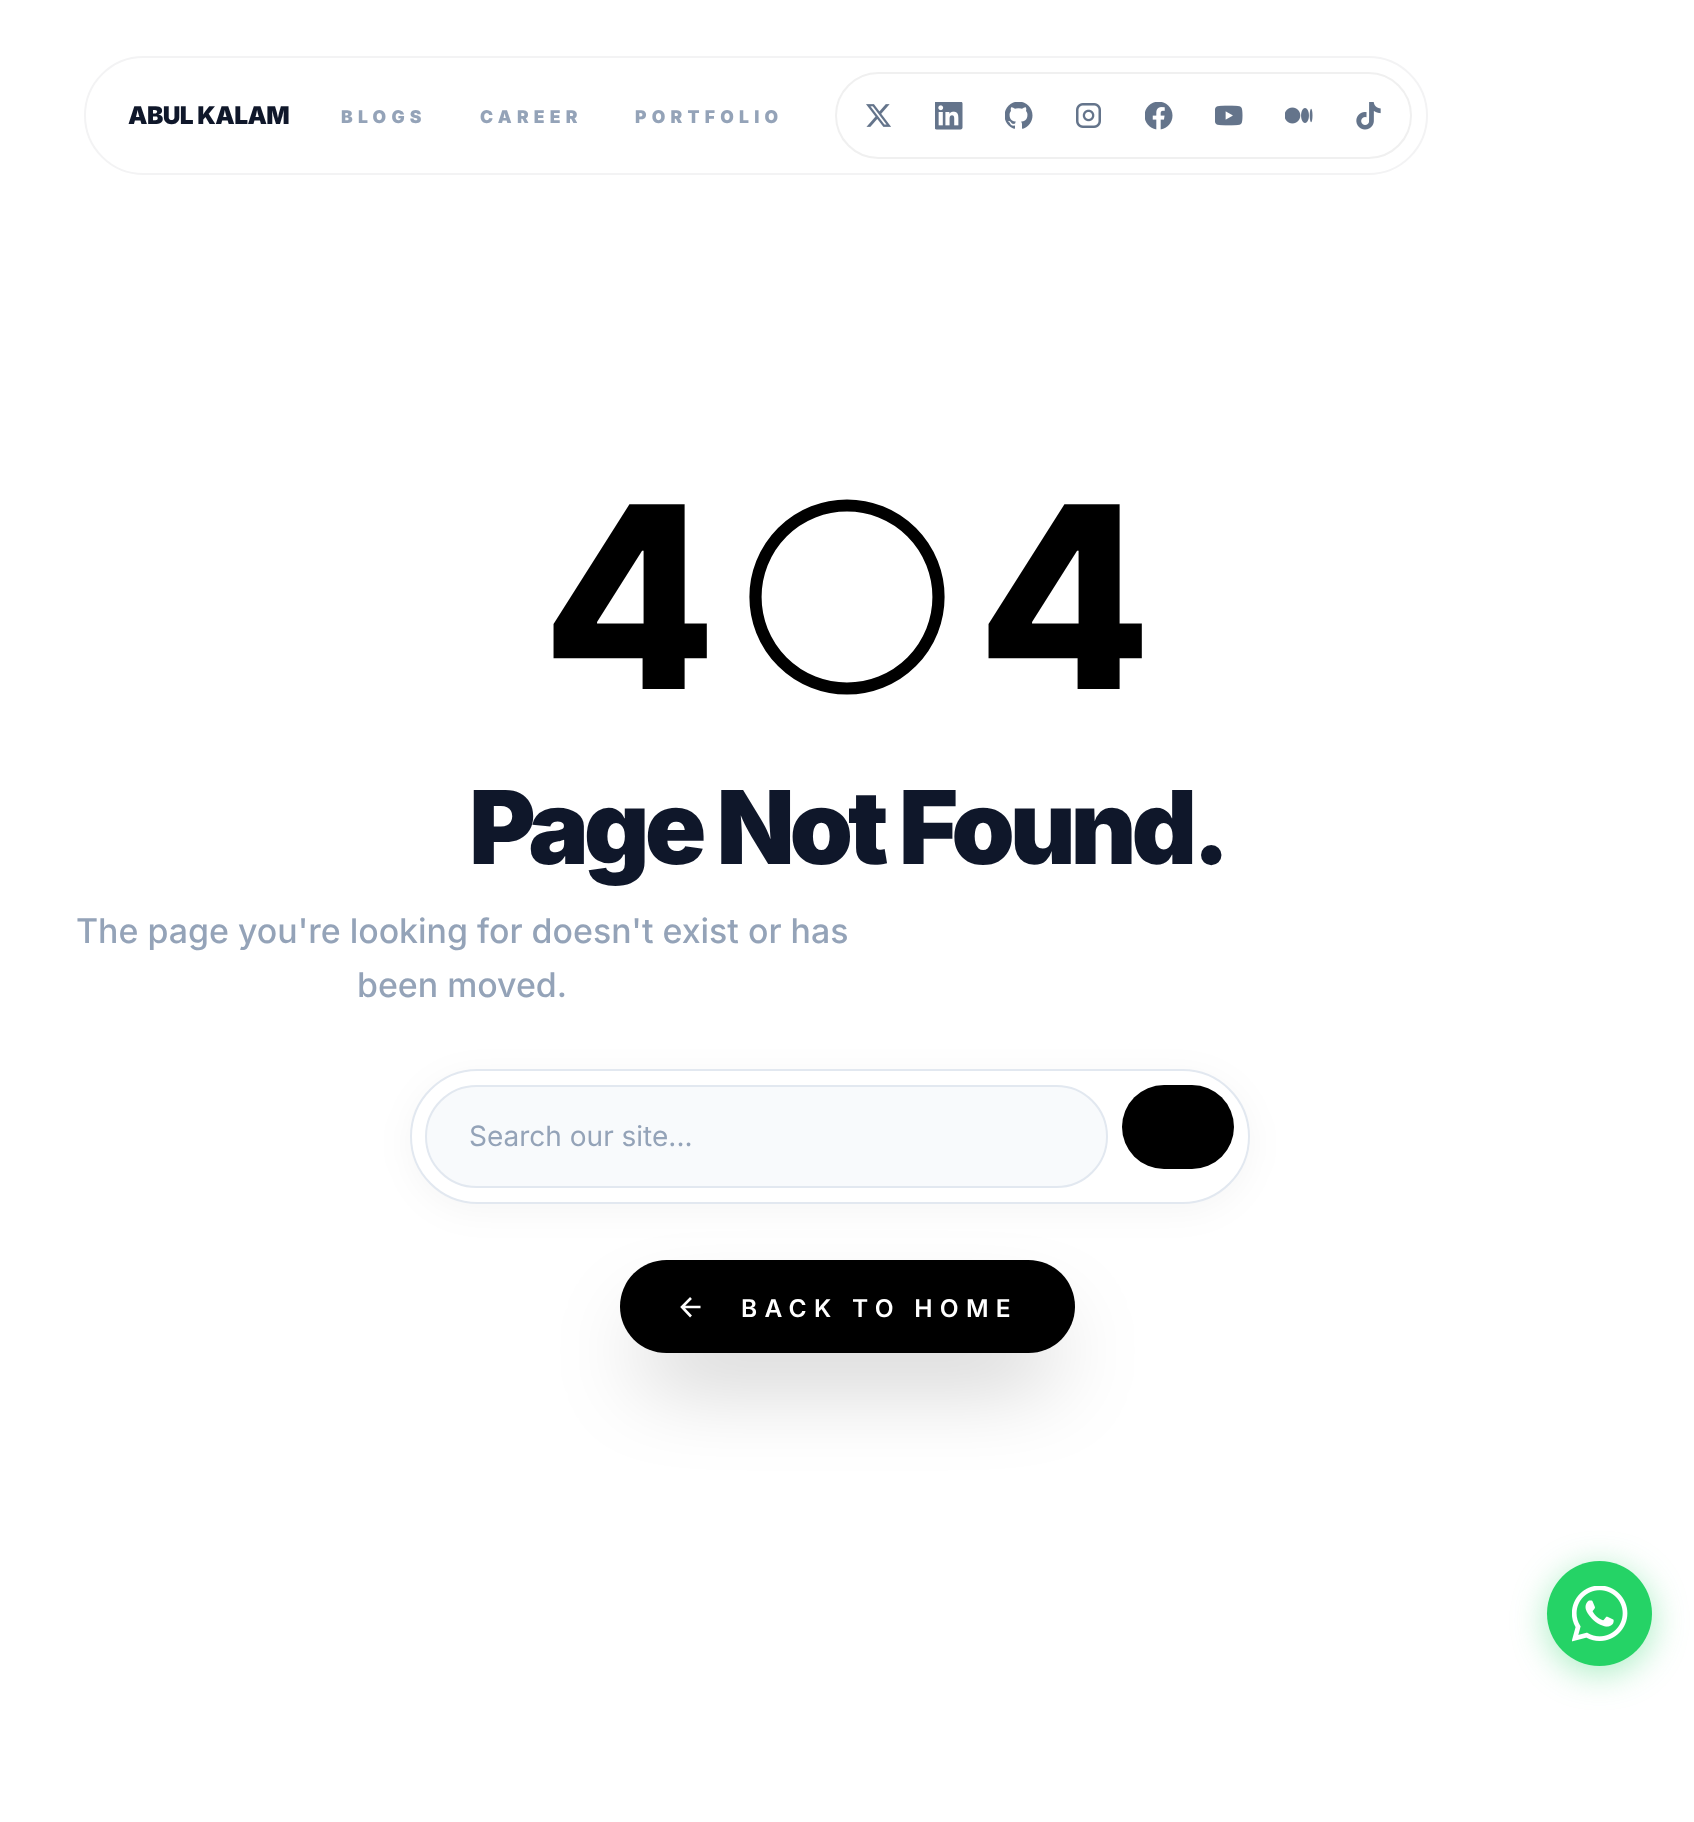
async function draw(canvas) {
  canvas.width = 1694
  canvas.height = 1822
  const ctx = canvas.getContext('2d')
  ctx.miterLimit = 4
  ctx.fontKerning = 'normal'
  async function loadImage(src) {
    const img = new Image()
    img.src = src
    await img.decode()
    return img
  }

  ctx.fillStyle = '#fff'
  ctx.fillRect(0, 0, 1694, 1822)
  ctx.beginPath()
  ctx.roundRect(85, 57, 1342, 117, 58.5)
  ctx.strokeStyle = '#f3f3f4'
  ctx.lineWidth = 2
  ctx.stroke()
  ctx.letterSpacing = '-0.6px'
  ctx.font = '900 24.5px Inter'
  ctx.fillStyle = '#0f172a'
  ctx.fillText('ABUL KALAM', 128, 124)
  ctx.letterSpacing = '5.25px'
  ctx.font = '900 17.5px Inter'
  ctx.fillStyle = '#94a3b8'
  ctx.fillText('BLOGS', 341, 123)
  ctx.fillText('CAREER', 480, 123)
  ctx.fillText('PORTFOLIO', 635, 123)
  ctx.beginPath()
  ctx.roundRect(836, 73, 575, 85, 42.5)
  ctx.strokeStyle = '#f0f0f0'
  ctx.stroke()
  ctx.drawImage(await loadImage('image0.png'), 866, 104, 25, 23)
  ctx.drawImage(await loadImage('image1.png'), 935, 102, 28, 28)
  ctx.drawImage(await loadImage('image2.png'), 1005, 102, 28, 27)
  ctx.drawImage(await loadImage('image3.png'), 1076, 103, 25, 25)
  ctx.drawImage(await loadImage('image4.png'), 1145, 102, 28, 28)
  ctx.drawImage(await loadImage('image5.png'), 1215, 105, 28, 21)
  ctx.drawImage(await loadImage('image6.png'), 1285, 107, 28, 17)
  ctx.drawImage(await loadImage('image7.png'), 1356, 102, 25, 28)
  ctx.letterSpacing = '0px'
  ctx.font = '800 254px Inter'
  ctx.fillStyle = '#000'
  ctx.fillText('4', 542, 689)
  ctx.beginPath()
  ctx.arc(847, 597, 91.5, 0, 2 * Math.PI)
  ctx.strokeStyle = '#000'
  ctx.lineWidth = 12.2
  ctx.stroke()
  ctx.fillText('4', 977, 689)
  ctx.letterSpacing = '-5.1px'
  ctx.font = '900 101.75px Inter'
  ctx.fillStyle = '#0f172a'
  ctx.fillText('Page Not Found.', 469, 864)
  ctx.letterSpacing = '0px'
  ctx.font = '500 33.9px Inter'
  ctx.fillStyle = '#94a3b8'
  ctx.fillText('The page you\'re looking for doesn\'t exist or has', 76, 943)
  ctx.fillText('been moved.', 357, 997)
  ctx.fillStyle = '#0000000a'
  ctx.filter = 'blur(17.5px)'
  ctx.beginPath()
  ctx.roundRect(410, 1076, 840, 135, 67.5)
  ctx.fill()
  ctx.filter = 'none'
  ctx.fillStyle = '#fff'
  ctx.beginPath()
  ctx.roundRect(411, 1070, 838, 133, 66.5)
  ctx.fill()
  ctx.strokeStyle = '#e2e8f0'
  ctx.lineWidth = 2
  ctx.stroke()
  ctx.fillStyle = '#f8fafc'
  ctx.beginPath()
  ctx.roundRect(426, 1086, 681, 101, 50.5)
  ctx.fill()
  ctx.stroke()
  ctx.font = '28px Inter'
  ctx.fillStyle = '#94a3b8'
  ctx.fillText('Search our site...', 469, 1146)
  ctx.fillStyle = '#000'
  ctx.beginPath()
  ctx.roundRect(1122, 1085, 112, 84, 42)
  ctx.fill()
  ctx.fillStyle = '#00000040'
  ctx.filter = 'blur(44px)'
  ctx.beginPath()
  ctx.roundRect(641, 1325, 413, 51, 25.5)
  ctx.fill()
  ctx.filter = 'none'
  ctx.fillStyle = '#000'
  ctx.beginPath()
  ctx.roundRect(620, 1260, 455, 93, 46.5)
  ctx.fill()
  ctx.beginPath()
  ctx.moveTo(700.5, 1307)
  ctx.lineTo(682, 1307)
  ctx.moveTo(691, 1316.5)
  ctx.lineTo(682, 1307)
  ctx.lineTo(691, 1298)
  ctx.strokeStyle = '#fff'
  ctx.lineWidth = 2.6
  ctx.stroke()
  ctx.letterSpacing = '7.3px'
  ctx.font = '600 24.5px Inter'
  ctx.fillStyle = '#fff'
  ctx.fillText('BACK TO HOME', 741, 1317)
  ctx.fillStyle = '#25d36666'
  ctx.filter = 'blur(17.5px)'
  ctx.beginPath()
  ctx.roundRect(1547, 1568, 105, 105, 52.5)
  ctx.fill()
  ctx.filter = 'none'
  ctx.fillStyle = '#25d366'
  ctx.beginPath()
  ctx.arc(1599.5, 1613.5, 52.5, 0, 2 * Math.PI)
  ctx.fill()
  ctx.drawImage(await loadImage('image8.png'), 1572, 1586, 56, 56)
}

draw(document.querySelector('canvas'))
